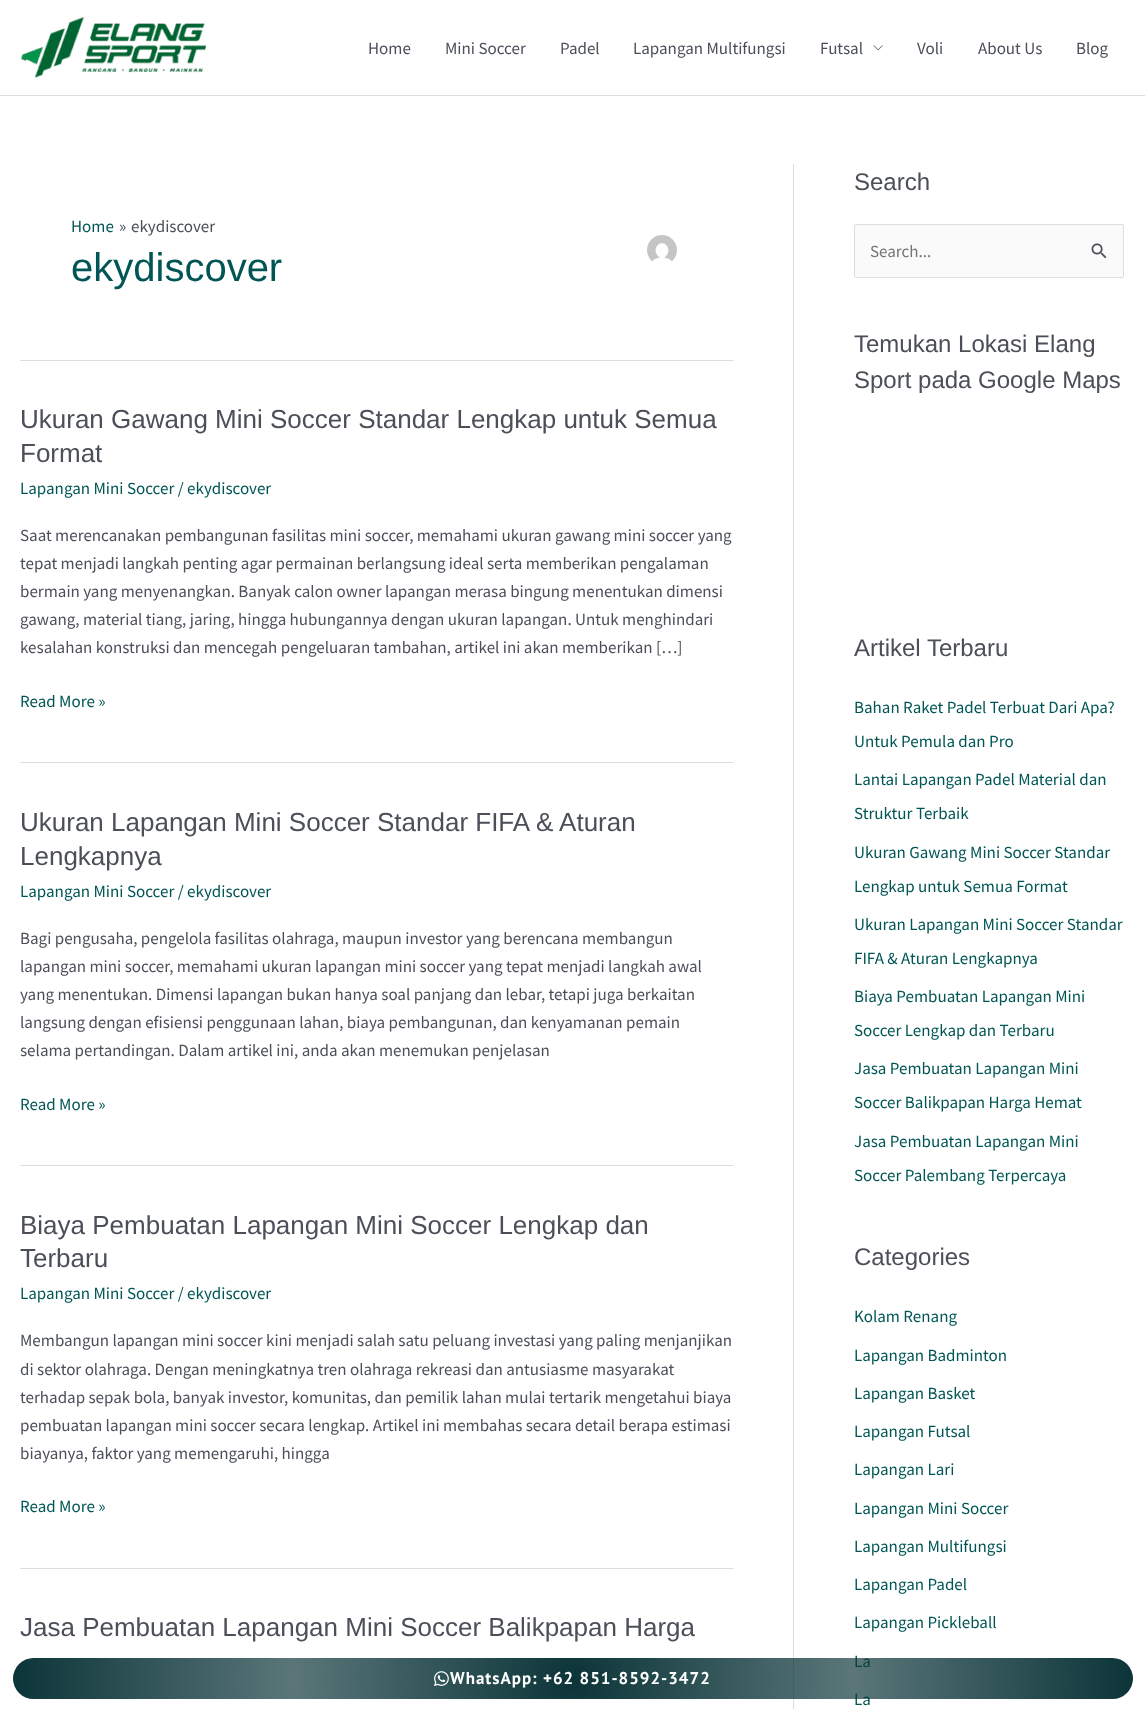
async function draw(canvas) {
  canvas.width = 1145
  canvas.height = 1709
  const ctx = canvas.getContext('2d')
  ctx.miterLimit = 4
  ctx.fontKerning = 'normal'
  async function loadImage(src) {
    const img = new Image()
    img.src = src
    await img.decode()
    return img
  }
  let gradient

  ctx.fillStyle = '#fff'
  ctx.fillRect(0, 0, 1145, 1709)
  ctx.fillStyle = '#ddd'
  ctx.fillRect(0, 95, 1145, 1)
  ctx.drawImage(await loadImage('image0.png'), 20, 17, 187, 61)
  ctx.font = '17px Source Sans Pro'
  ctx.fillStyle = '#4b4f58'
  ctx.fillText('Home', 368, 54)
  ctx.fillText('Mini Soccer', 445, 54)
  ctx.fillText('Padel', 560, 54)
  ctx.fillText('Lapangan Multifungsi', 633, 54)
  ctx.fillText('Futsal', 820, 54)
  ctx.drawImage(await loadImage('image1.png'), 873, 45, 10, 6)
  ctx.fillText('Voli', 917, 54)
  ctx.fillText('About Us', 978, 54)
  ctx.fillText('Blog', 1076, 54)
  ctx.fillStyle = '#ddd'
  ctx.fillRect(793, 164, 1, 1545)
  ctx.fillRect(20, 360, 713, 1)
  ctx.fillStyle = '#015655'
  ctx.fillText('Home', 71, 232)
  ctx.fillStyle = '#4b4f58'
  ctx.fillText('»', 119, 232)
  ctx.fillText('ekydiscover', 131, 232)
  ctx.font = '40px Liberation Sans'
  ctx.fillStyle = '#015655'
  ctx.fillText('ekydiscover', 71, 281)
  ctx.drawImage(await loadImage('image2.png'), 647, 235, 30, 27)
  ctx.fillStyle = '#ddd'
  ctx.fillRect(20, 762, 713, 1)
  ctx.font = '26px Liberation Sans'
  ctx.fillStyle = '#4b4f58'
  ctx.fillText('Ukuran Gawang Mini Soccer Standar Lengkap untuk Semua', 20, 428)
  ctx.fillText('Format', 20, 462)
  ctx.font = '17px Source Sans Pro'
  ctx.fillStyle = '#015655'
  ctx.fillText('Lapangan Mini Soccer / ekydiscover', 20, 494)
  ctx.fillStyle = '#4b4f58'
  ctx.fillText('Saat merencanakan pembangunan fasilitas mini soccer, memahami ukuran gawang mini soccer yang', 20, 541)
  ctx.fillText('tepat menjadi langkah penting agar permainan berlangsung ideal serta memberikan pengalaman', 20, 569)
  ctx.fillText('bermain yang menyenangkan. Banyak calon owner lapangan merasa bingung menentukan dimensi', 20, 597)
  ctx.fillText('gawang, material tiang, jaring, hingga hubungannya dengan ukuran lapangan. Untuk menghindari', 20, 625)
  ctx.fillText('kesalahan konstruksi dan mencegah pengeluaran tambahan, artikel ini akan memberikan […]', 20, 653)
  ctx.fillStyle = '#015655'
  ctx.fillText('Read More »', 20, 707)
  ctx.fillStyle = '#ddd'
  ctx.fillRect(20, 1165, 713, 1)
  ctx.font = '26px Liberation Sans'
  ctx.fillStyle = '#4b4f58'
  ctx.fillText('Ukuran Lapangan Mini Soccer Standar FIFA & Aturan', 20, 831)
  ctx.fillText('Lengkapnya', 20, 865)
  ctx.font = '17px Source Sans Pro'
  ctx.fillStyle = '#015655'
  ctx.fillText('Lapangan Mini Soccer / ekydiscover', 20, 897)
  ctx.fillStyle = '#4b4f58'
  ctx.fillText('Bagi pengusaha, pengelola fasilitas olahraga, maupun investor yang berencana membangun', 20, 944)
  ctx.fillText('lapangan mini soccer, memahami ukuran lapangan mini soccer yang tepat menjadi langkah awal', 20, 972)
  ctx.fillText('yang menentukan. Dimensi lapangan bukan hanya soal panjang dan lebar, tetapi juga berkaitan', 20, 1000)
  ctx.fillText('langsung dengan efisiensi penggunaan lahan, biaya pembangunan, dan kenyamanan pemain', 20, 1028)
  ctx.fillText('selama pertandingan. Dalam artikel ini, anda akan menemukan penjelasan', 20, 1056)
  ctx.fillStyle = '#015655'
  ctx.fillText('Read More »', 20, 1110)
  ctx.fillStyle = '#ddd'
  ctx.fillRect(20, 1568, 713, 1)
  ctx.font = '26px Liberation Sans'
  ctx.fillStyle = '#4b4f58'
  ctx.fillText('Biaya Pembuatan Lapangan Mini Soccer Lengkap dan', 20, 1234)
  ctx.fillText('Terbaru', 20, 1267)
  ctx.font = '17px Source Sans Pro'
  ctx.fillStyle = '#015655'
  ctx.fillText('Lapangan Mini Soccer / ekydiscover', 20, 1299)
  ctx.fillStyle = '#4b4f58'
  ctx.fillText('Membangun lapangan mini soccer kini menjadi salah satu peluang investasi yang paling menjanjikan', 20, 1346)
  ctx.fillText('di sektor olahraga. Dengan meningkatnya tren olahraga rekreasi dan antusiasme masyarakat', 20, 1375)
  ctx.fillText('terhadap sepak bola, banyak investor, komunitas, dan pemilik lahan mulai tertarik mengetahui biaya', 20, 1403)
  ctx.fillText('pembuatan lapangan mini soccer secara lengkap. Artikel ini membahas secara detail berapa estimasi', 20, 1431)
  ctx.fillText('biayanya, faktor yang memengaruhi, hingga', 20, 1459)
  ctx.fillStyle = '#015655'
  ctx.fillText('Read More »', 20, 1512)
  ctx.font = '26px Liberation Sans'
  ctx.fillStyle = '#4b4f58'
  ctx.fillText('Jasa Pembuatan Lapangan Mini Soccer Balikpapan Harga', 20, 1636)
  ctx.font = '24px Liberation Sans'
  ctx.fillText('Search', 854, 190)
  ctx.fillStyle = '#fafafa'
  ctx.beginPath()
  ctx.roundRect(854.5, 224.5, 269, 53, 1.5)
  ctx.fill()
  ctx.strokeStyle = '#ddd'
  ctx.stroke()
  ctx.font = '17px Source Sans Pro'
  ctx.fillStyle = '#757575'
  ctx.fillText('Search...', 870, 257)
  ctx.drawImage(await loadImage('image3.png'), 1091, 243, 16, 16)
  ctx.font = '24px Liberation Sans'
  ctx.fillStyle = '#4b4f58'
  ctx.fillText('Temukan Lokasi Elang', 854, 352)
  ctx.fillText('Sport pada Google Maps', 854, 388)
  ctx.fillText('Artikel Terbaru', 854, 656)
  ctx.font = '17px Source Sans Pro'
  ctx.fillStyle = '#015655'
  ctx.fillText('Bahan Raket Padel Terbuat Dari Apa?', 854, 713)
  ctx.fillText('Untuk Pemula dan Pro', 854, 747)
  ctx.fillText('Lantai Lapangan Padel Material dan', 854, 785)
  ctx.fillText('Struktur Terbaik', 854, 819)
  ctx.fillText('Ukuran Gawang Mini Soccer Standar', 854, 858)
  ctx.fillText('Lengkap untuk Semua Format', 854, 892)
  ctx.fillText('Ukuran Lapangan Mini Soccer Standar', 854, 930)
  ctx.fillText('FIFA & Aturan Lengkapnya', 854, 964)
  ctx.fillText('Biaya Pembuatan Lapangan Mini', 854, 1002)
  ctx.fillText('Soccer Lengkap dan Terbaru', 854, 1036)
  ctx.fillText('Jasa Pembuatan Lapangan Mini', 854, 1074)
  ctx.fillText('Soccer Balikpapan Harga Hemat', 854, 1108)
  ctx.fillText('Jasa Pembuatan Lapangan Mini', 854, 1147)
  ctx.fillText('Soccer Palembang Terpercaya', 854, 1181)
  ctx.font = '24px Liberation Sans'
  ctx.fillStyle = '#4b4f58'
  ctx.fillText('Categories', 854, 1265)
  ctx.font = '17px Source Sans Pro'
  ctx.fillStyle = '#015655'
  ctx.fillText('Kolam Renang', 854, 1322)
  ctx.fillText('Lapangan Badminton', 854, 1361)
  ctx.fillText('Lapangan Basket', 854, 1399)
  ctx.fillText('Lapangan Futsal', 854, 1437)
  ctx.fillText('Lapangan Lari', 854, 1475)
  ctx.fillText('Lapangan Mini Soccer', 854, 1514)
  ctx.fillText('Lapangan Multifungsi', 854, 1552)
  ctx.fillText('Lapangan Padel', 854, 1590)
  ctx.fillText('Lapangan Pickleball', 854, 1628)
  ctx.fillText('La', 854, 1667)
  ctx.fillText('La', 854, 1705)
  gradient = ctx.createRadialGradient(573, 1679, 0, 573, 1679, 560)
  gradient.addColorStop(0, '#0c3539')
  gradient.addColorStop(0.5, '#0c3539ad')
  gradient.addColorStop(1, '#0c3539')
  ctx.fillStyle = gradient
  ctx.beginPath()
  ctx.roundRect(13, 1658, 1120, 41, 20.5)
  ctx.fill()
  ctx.drawImage(await loadImage('image4.png'), 434, 1671, 15, 15)
  ctx.letterSpacing = '1px'
  ctx.font = 'bold 17px PT Sans'
  ctx.fillStyle = '#fff'
  ctx.fillText('WhatsApp: +62 851-8592-3472', 450, 1684)
}

draw(document.querySelector('canvas'))
